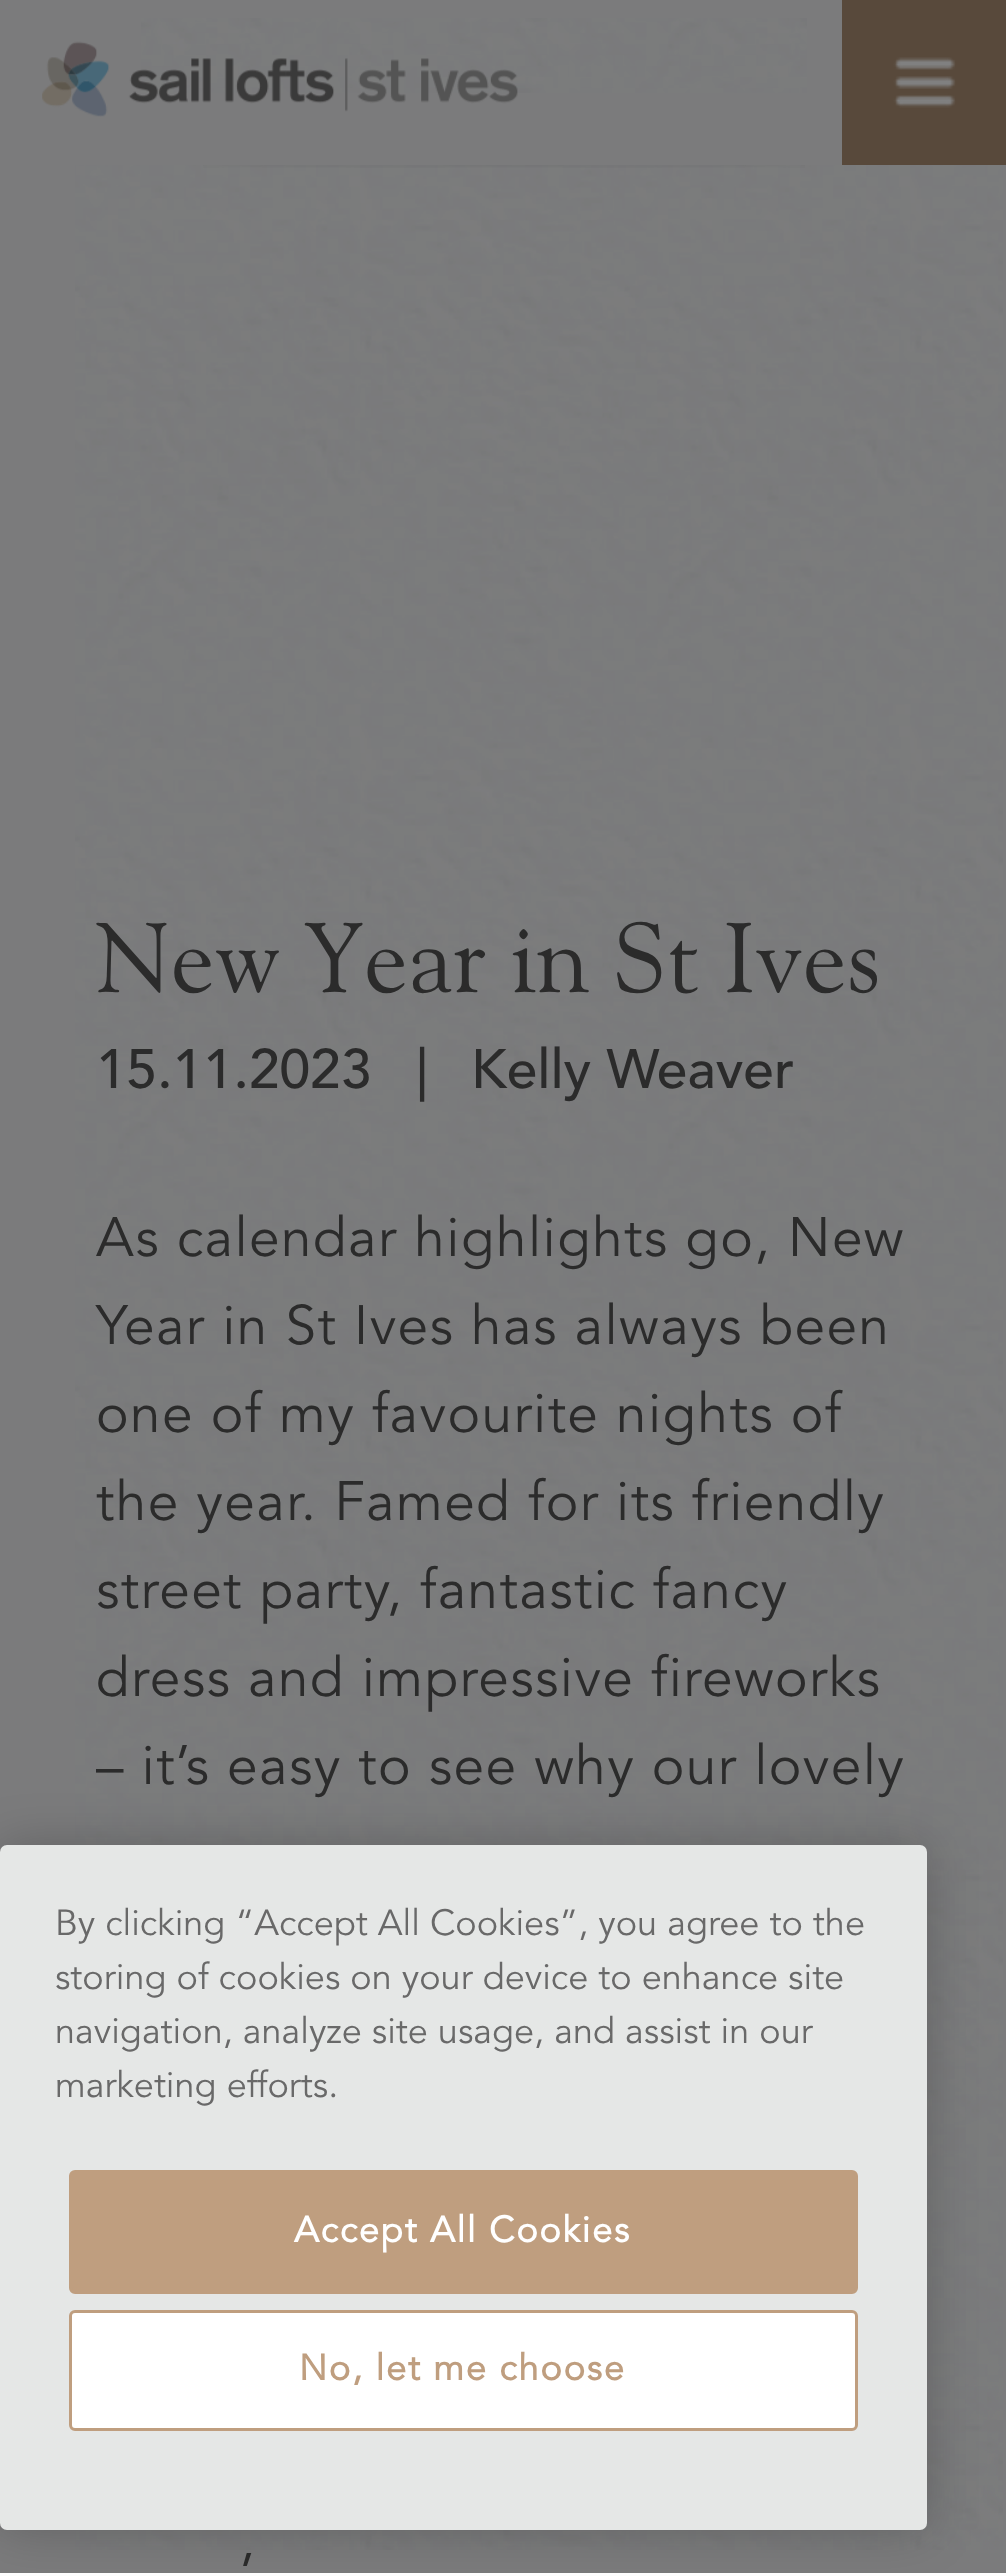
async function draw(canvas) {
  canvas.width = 1006
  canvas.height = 2573
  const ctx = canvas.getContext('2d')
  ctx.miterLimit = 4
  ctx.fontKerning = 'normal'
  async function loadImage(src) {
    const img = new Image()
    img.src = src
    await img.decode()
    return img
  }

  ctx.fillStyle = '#7b7b7c'
  ctx.fillRect(0, 0, 1006, 2573)
  ctx.drawImage(await loadImage('image0.png'), 75, 165, 928, 2385)
  ctx.drawImage(await loadImage('image1.png'), 141, 18, 666, 75)
  ctx.drawImage(await loadImage('image2.png'), 42, 41, 476, 76)
  ctx.fillStyle = '#58493b'
  ctx.fillRect(842, 0, 164, 165)
  ctx.drawImage(await loadImage('image3.png'), 893, 57, 63, 51)
  ctx.drawImage(await loadImage('image4.png'), 203, 165, 602, 3)
  ctx.font = '99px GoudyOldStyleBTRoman'
  ctx.fillStyle = '#2b2b2b'
  ctx.fillText('New Year in St Ives', 96, 992)
  ctx.font = '55px Avenir'
  ctx.fillText('15.11.2023', 96, 1088)
  ctx.fillText('|', 416, 1088)
  ctx.fillText('Kelly Weaver', 471, 1088)
  ctx.letterSpacing = '1.4px'
  ctx.font = '55px "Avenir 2"'
  ctx.fillText('As calendar highlights go, New', 96, 1256)
  ctx.fillText('Year in St Ives has always been', 96, 1344)
  ctx.fillText('one of my favourite nights of', 96, 1432)
  ctx.fillText('the year. Famed for its friendly', 96, 1520)
  ctx.fillText('street party, fantastic fancy', 96, 1608)
  ctx.fillText('dress and impressive fireworks', 96, 1696)
  ctx.fillText('– it’s easy to see why our lovely', 96, 1784)
  ctx.fillText('’', 240, 2592)
  ctx.fillStyle = '#00000033'
  ctx.filter = 'blur(25px)'
  ctx.beginPath()
  ctx.roundRect(0, 1845, 927, 685, 7)
  ctx.fill()
  ctx.filter = 'none'
  ctx.fillStyle = '#e5e7e6'
  ctx.beginPath()
  ctx.roundRect(0, 1845, 927, 685, 7)
  ctx.fill()
  ctx.letterSpacing = '0px'
  ctx.font = '36.1px "Avenir 2"'
  ctx.fillStyle = '#696969'
  ctx.fillText('By clicking “Accept All Cookies”, you agree to the', 55, 1935)
  ctx.fillText('storing of cookies on your device to enhance site', 55, 1989)
  ctx.fillText('navigation, analyze site usage, and assist in our', 55, 2043)
  ctx.fillText('marketing efforts.', 55, 2097)
  ctx.fillStyle = '#bf9e7f'
  ctx.beginPath()
  ctx.roundRect(70.5, 2171.5, 786, 121, 4.5)
  ctx.fill()
  ctx.strokeStyle = '#bf9e7f'
  ctx.lineWidth = 3
  ctx.stroke()
  ctx.letterSpacing = '1.75px'
  ctx.font = 'bold 36.1px Avenir'
  ctx.fillStyle = '#fff'
  ctx.fillText('Accept All Cookies', 294, 2242)
  ctx.beginPath()
  ctx.roundRect(70.5, 2311.5, 786, 118, 4.5)
  ctx.fill()
  ctx.stroke()
  ctx.fillStyle = '#bf9e7f'
  ctx.fillText('No, let me choose', 299, 2380)
}

draw(document.querySelector('canvas'))
